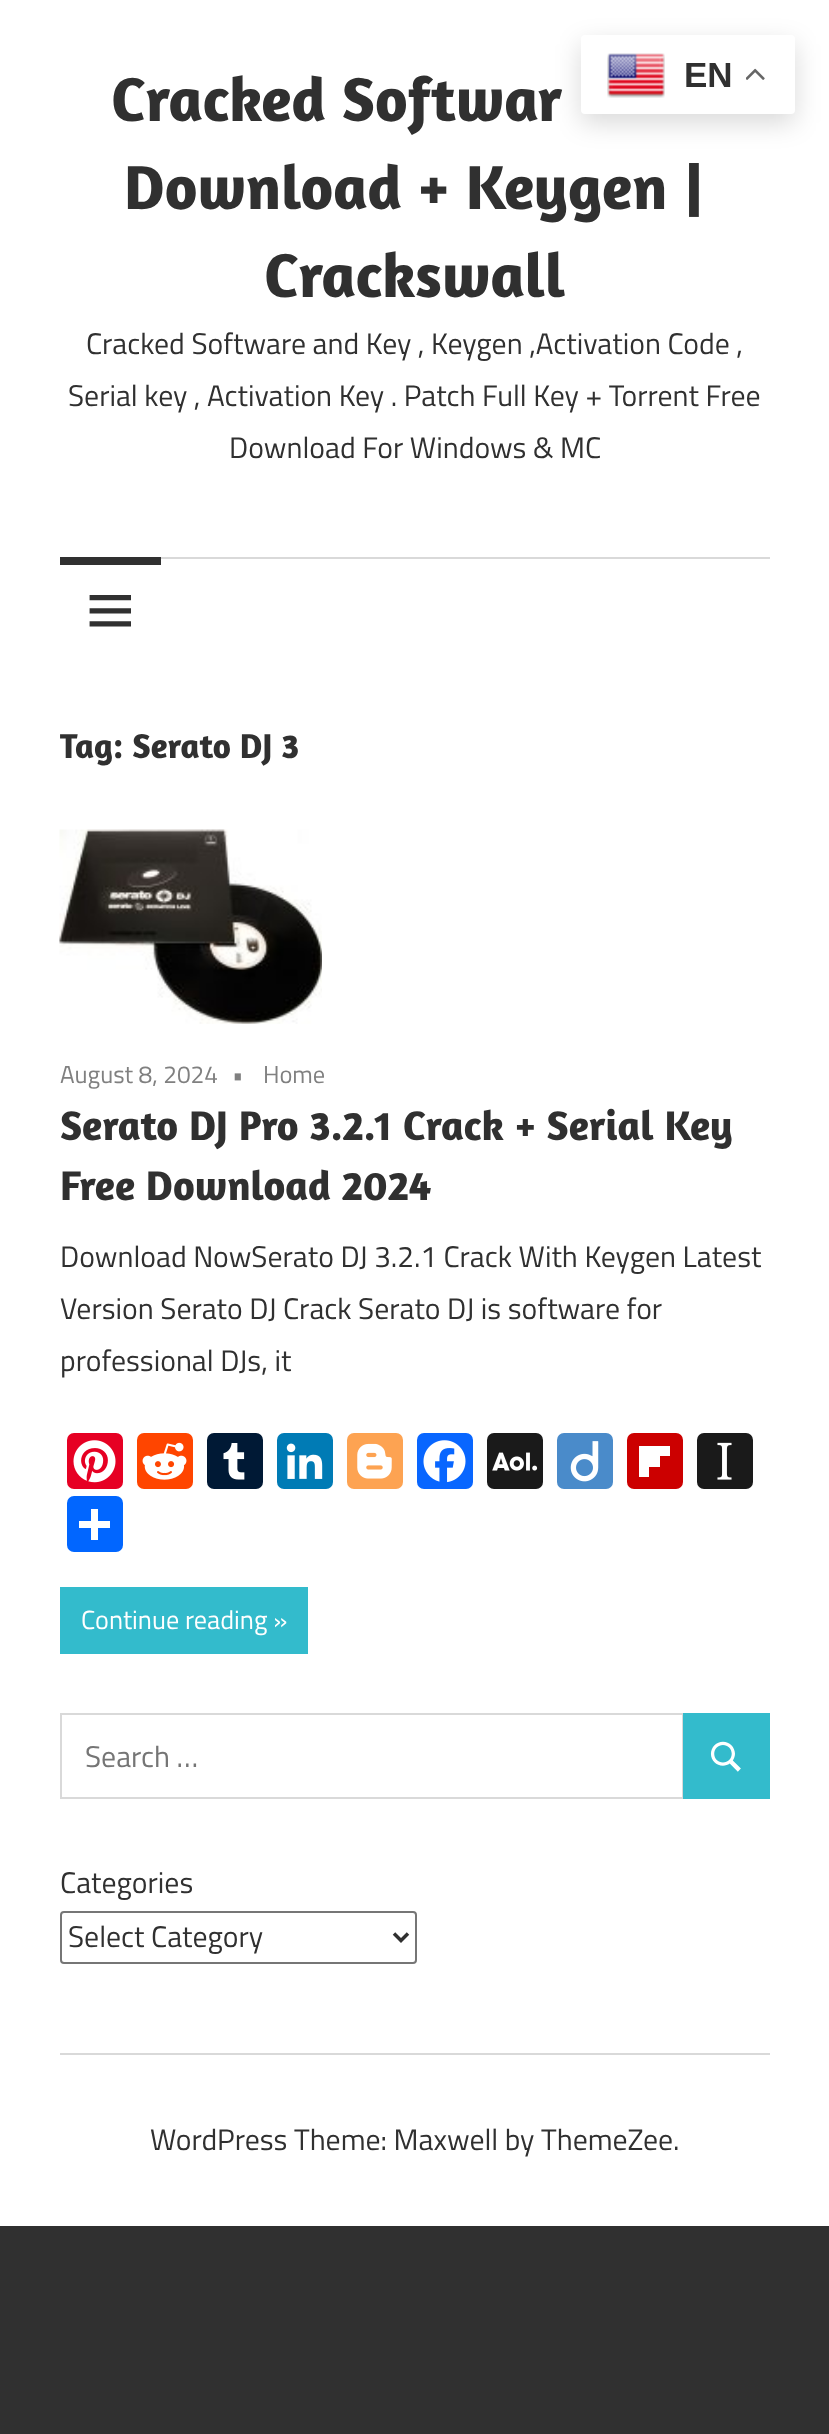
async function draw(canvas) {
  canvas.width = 829
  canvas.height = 2434
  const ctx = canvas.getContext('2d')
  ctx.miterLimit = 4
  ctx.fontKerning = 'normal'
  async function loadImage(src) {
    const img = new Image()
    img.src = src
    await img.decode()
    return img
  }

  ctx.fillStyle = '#303030'
  ctx.fillRect(0, 0, 829, 2434)
  ctx.fillStyle = '#fff'
  ctx.fillRect(0, 0, 829, 2226)
  ctx.fillStyle = '#00000026'
  ctx.filter = 'blur(13px)'
  ctx.beginPath()
  ctx.roundRect(581, 44, 214, 79, 4)
  ctx.fill()
  ctx.filter = 'none'
  ctx.fillStyle = '#fff'
  ctx.beginPath()
  ctx.roundRect(581, 35, 214, 79, 4)
  ctx.fill()
  ctx.drawImage(await loadImage('image0.png'), 607, 53, 58, 45)
  ctx.font = 'bold 35px Liberation Sans'
  ctx.fillStyle = '#303030'
  ctx.fillText('EN', 684, 87)
  ctx.drawImage(await loadImage('image1.png'), 746, 68, 19, 12)
  ctx.font = 'bold 63px Amaranth'
  ctx.fillText('Cracked Softwar', 111, 121)
  ctx.fillText('Download + Keygen |', 124, 209)
  ctx.fillText('Crackswall', 264, 297)
  ctx.font = '29.75px Titillium Web'
  ctx.fillText('Cracked Software and Key , Keygen ,Activation Code ,', 86, 354)
  ctx.fillText('Serial key , Activation Key . Patch Full Key + Torrent Free', 68, 406)
  ctx.fillText('Download For Windows & MC', 229, 458)
  ctx.fillStyle = '#d9d9d9'
  ctx.fillRect(161, 557, 609, 2)
  ctx.fillStyle = '#303030'
  ctx.fillRect(60, 557, 101, 8)
  ctx.drawImage(await loadImage('image2.png'), 89, 595, 42, 32)
  ctx.font = 'bold 35px Amaranth'
  ctx.fillText('Tag: Serato DJ 3', 60, 758)
  ctx.drawImage(await loadImage('image3.png'), 59, 829, 263, 195)
  ctx.font = '24.5px Titillium Web'
  ctx.fillStyle = '#808080'
  ctx.fillText('August 8, 2024', 60, 1083)
  ctx.fillText('•', 232, 1083)
  ctx.fillText('Home', 263, 1083)
  ctx.font = 'bold 42px Amaranth'
  ctx.fillStyle = '#303030'
  ctx.fillText('Serato DJ Pro 3.2.1 Crack + Serial Key', 60, 1140)
  ctx.fillText('Free Download 2024', 60, 1200)
  ctx.font = '29.75px Titillium Web'
  ctx.fillText('Download NowSerato DJ 3.2.1 Crack With Keygen Latest', 60, 1267)
  ctx.fillText('Version Serato DJ Crack Serato DJ is software for', 60, 1319)
  ctx.fillText('professional DJs, it', 60, 1371)
  ctx.fillStyle = '#e60023'
  ctx.beginPath()
  ctx.roundRect(67, 1433, 56, 56, 7)
  ctx.fill()
  ctx.drawImage(await loadImage('image4.png'), 73, 1440, 43, 43)
  ctx.fillStyle = '#ff4500'
  ctx.beginPath()
  ctx.roundRect(137, 1433, 56, 56, 7)
  ctx.fill()
  ctx.drawImage(await loadImage('image5.png'), 142, 1442, 45, 38)
  ctx.fillStyle = '#001935'
  ctx.beginPath()
  ctx.roundRect(207, 1433, 56, 56, 7)
  ctx.fill()
  ctx.drawImage(await loadImage('image6.png'), 223, 1443, 22, 37)
  ctx.fillStyle = '#007bb5'
  ctx.beginPath()
  ctx.roundRect(277, 1433, 56, 56, 7)
  ctx.fill()
  ctx.drawImage(await loadImage('image7.png'), 286, 1443, 37, 36)
  ctx.fillStyle = '#fda352'
  ctx.beginPath()
  ctx.roundRect(347, 1433, 56, 56, 7)
  ctx.fill()
  ctx.drawImage(await loadImage('image8.png'), 357, 1443, 35, 36)
  ctx.fillStyle = '#0866ff'
  ctx.beginPath()
  ctx.roundRect(417, 1433, 56, 56, 7)
  ctx.fill()
  ctx.drawImage(await loadImage('image9.png'), 423, 1440, 43, 43)
  ctx.fillStyle = '#1a1a1a'
  ctx.beginPath()
  ctx.roundRect(487, 1433, 56, 56, 7)
  ctx.fill()
  ctx.drawImage(await loadImage('image10.png'), 492, 1452, 46, 19)
  ctx.fillStyle = '#4a8bca'
  ctx.beginPath()
  ctx.roundRect(557, 1433, 56, 56, 7)
  ctx.fill()
  ctx.drawImage(await loadImage('image11.png'), 570, 1441, 29, 41)
  ctx.fillStyle = '#c00'
  ctx.beginPath()
  ctx.roundRect(627, 1433, 56, 56, 7)
  ctx.fill()
  ctx.fillStyle = '#fff'
  ctx.fillRect(649, 1456, 11, 11)
  ctx.fillRect(649, 1446, 21, 10)
  ctx.fillRect(639, 1446, 10, 31)
  ctx.fillStyle = '#1a1a1a'
  ctx.beginPath()
  ctx.roundRect(697, 1433, 56, 56, 7)
  ctx.fill()
  ctx.drawImage(await loadImage('image12.png'), 717, 1442, 15, 38)
  ctx.fillStyle = '#0166ff'
  ctx.beginPath()
  ctx.roundRect(67, 1496, 56, 56, 7)
  ctx.fill()
  ctx.fillStyle = '#fff'
  ctx.fillRect(91, 1509, 7, 31)
  ctx.fillRect(79, 1521, 31, 7)
  ctx.fillStyle = '#3bc'
  ctx.fillRect(60, 1587, 248, 67)
  ctx.font = '26.25px Titillium Web'
  ctx.fillStyle = '#fff'
  ctx.fillText('Continue reading »', 81, 1629)
  ctx.strokeStyle = '#d9d9d9'
  ctx.lineWidth = 2
  ctx.strokeRect(61, 1714, 622, 84)
  ctx.font = '29.75px Titillium Web'
  ctx.fillStyle = '#757575'
  ctx.fillText('Search …', 85, 1767)
  ctx.fillStyle = '#3bc'
  ctx.fillRect(683, 1713, 87, 86)
  ctx.drawImage(await loadImage('image13.png'), 710, 1741, 31, 31)
  ctx.fillStyle = '#303030'
  ctx.fillText('Categories', 60, 1893)
  ctx.beginPath()
  ctx.roundRect(61, 1912, 355, 51, 3)
  ctx.strokeStyle = '#767676'
  ctx.stroke()
  ctx.beginPath()
  ctx.moveTo(394, 1933.5)
  ctx.lineTo(401, 1940.5)
  ctx.lineTo(408, 1933.5)
  ctx.strokeStyle = '#303030'
  ctx.lineWidth = 3.5
  ctx.stroke()
  ctx.fillText('Select Category', 68, 1947)
  ctx.fillStyle = '#d9d9d9'
  ctx.fillRect(60, 2053, 710, 2)
  ctx.fillStyle = '#303030'
  ctx.fillText('WordPress Theme: Maxwell by ThemeZee.', 150, 2150)
}

draw(document.querySelector('canvas'))
